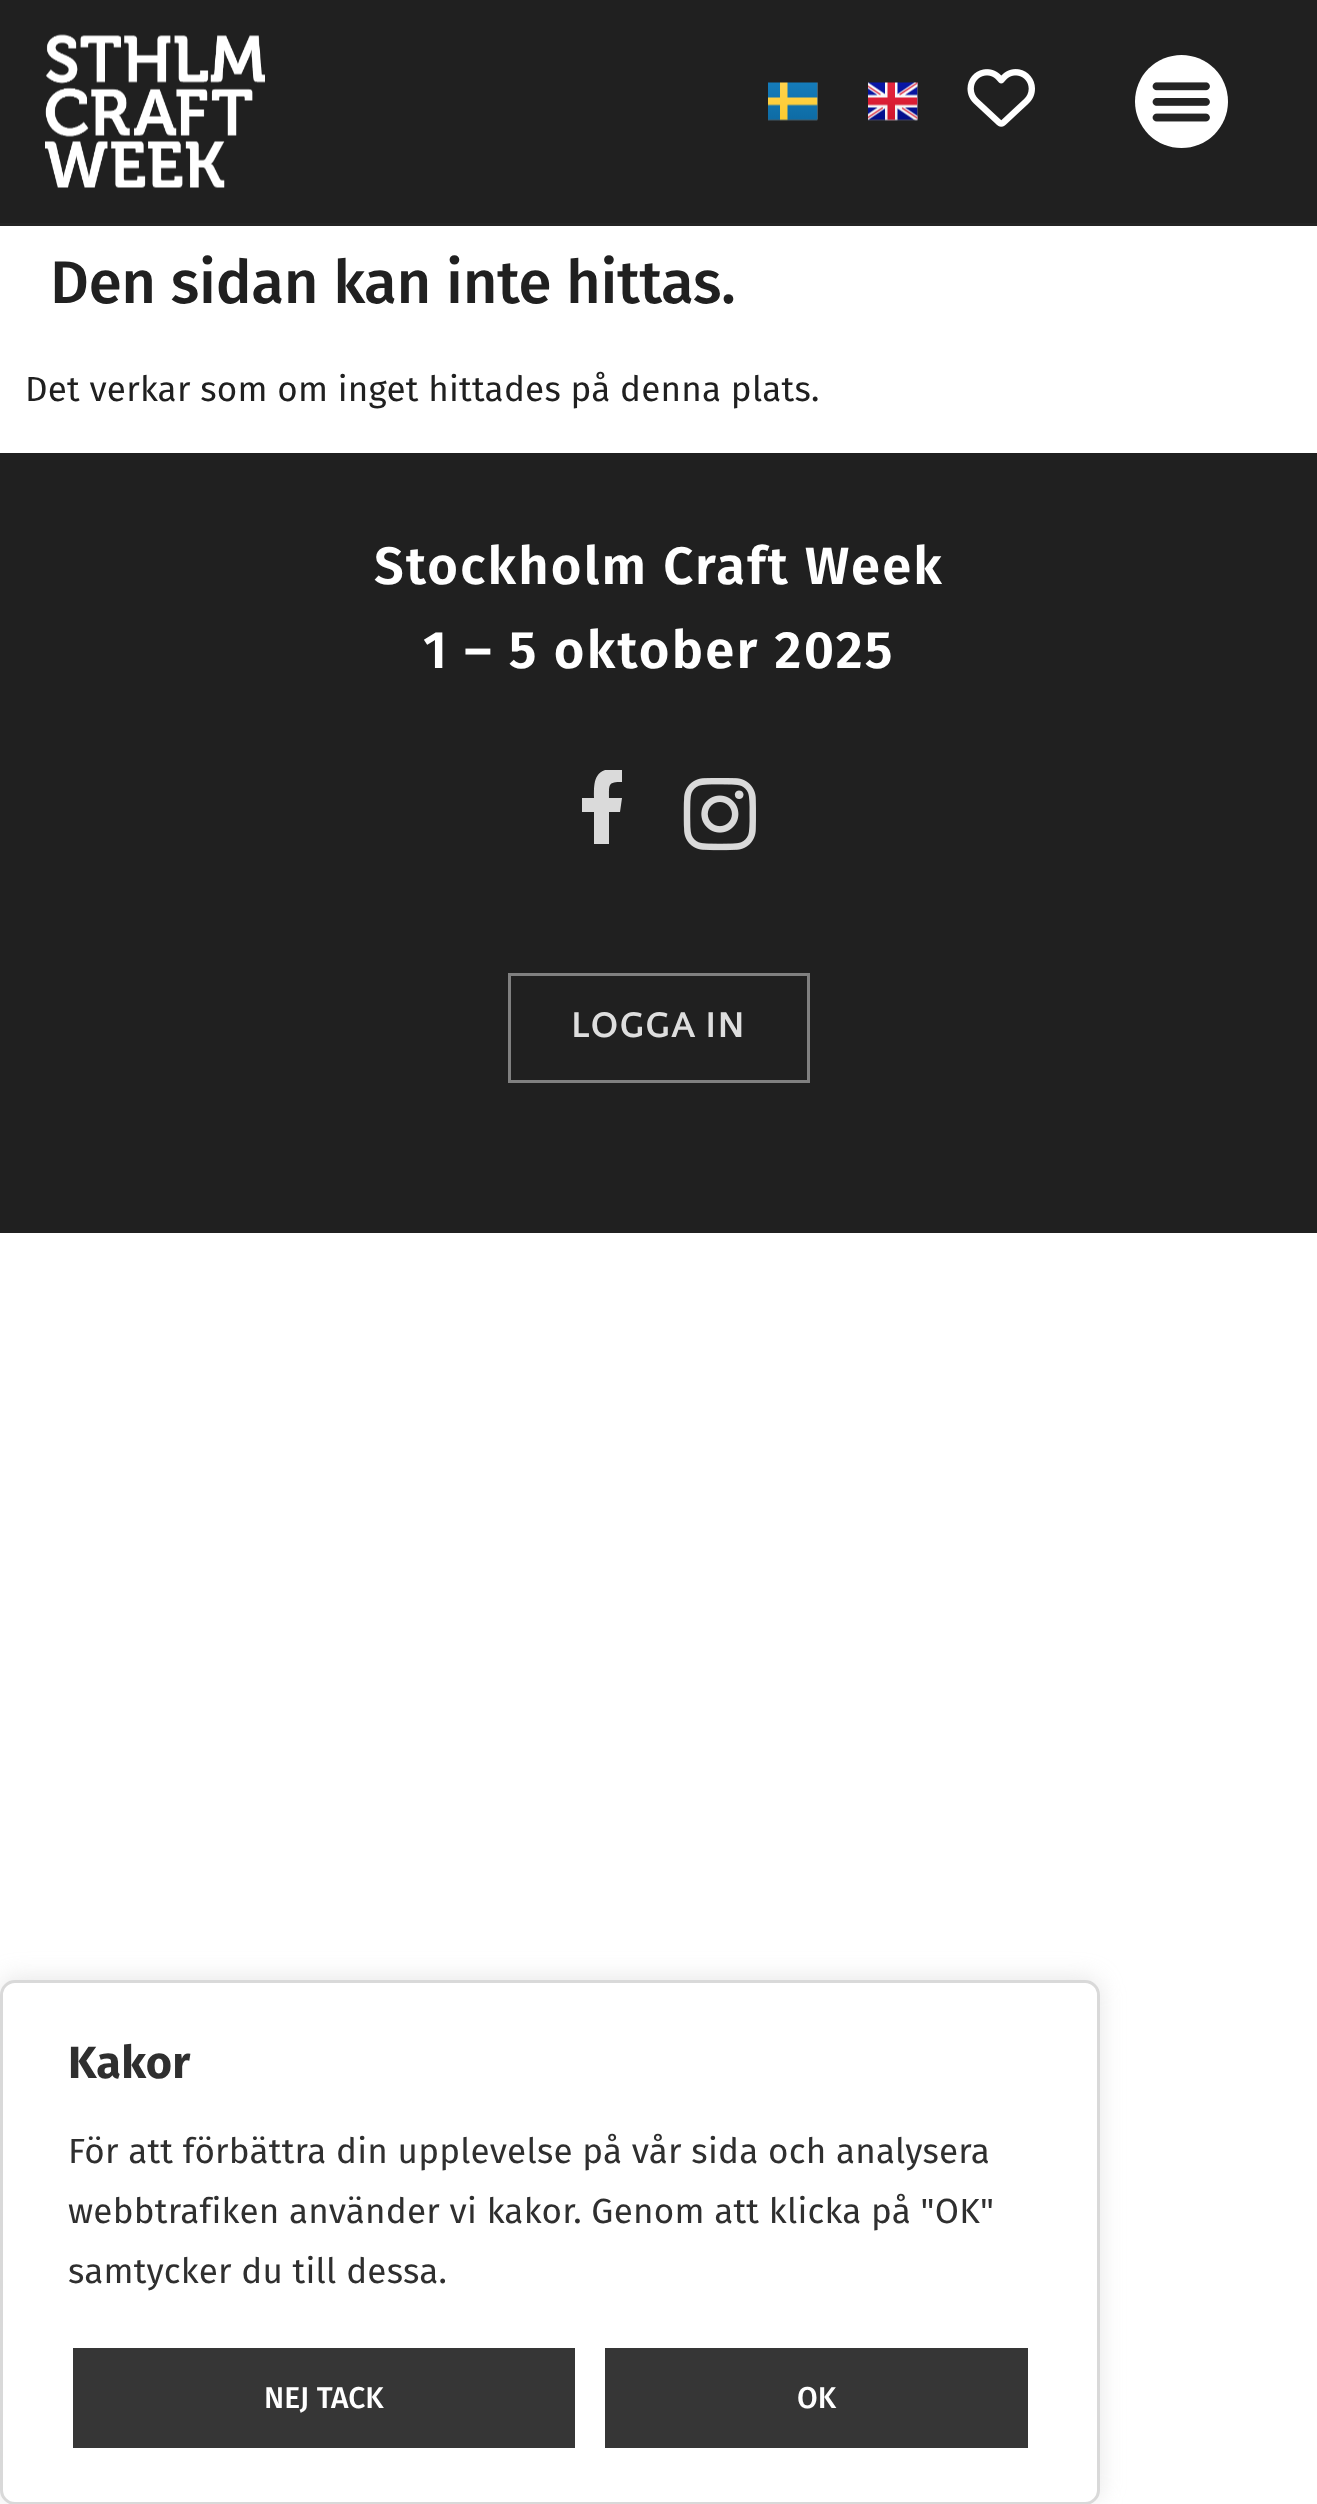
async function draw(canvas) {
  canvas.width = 1317
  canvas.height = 2504
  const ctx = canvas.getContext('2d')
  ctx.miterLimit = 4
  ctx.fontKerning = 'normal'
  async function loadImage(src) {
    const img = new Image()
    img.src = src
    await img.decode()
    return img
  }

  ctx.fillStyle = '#fff'
  ctx.fillRect(0, 0, 1317, 2504)
  ctx.fillStyle = '#202020'
  ctx.fillRect(0, 0, 1317, 223)
  ctx.fillStyle = '#242424'
  ctx.fillRect(0, 223, 1317, 3)
  ctx.drawImage(await loadImage('image0.png'), 45, 34, 220, 154)
  ctx.drawImage(await loadImage('image1.png'), 768, 82, 50, 39)
  ctx.drawImage(await loadImage('image2.png'), 868, 82, 50, 39)
  ctx.drawImage(await loadImage('image3.png'), 967, 69, 68, 58)
  ctx.fillStyle = '#fff'
  ctx.beginPath()
  ctx.arc(1181.5, 101.5, 46.5, 0, 2 * Math.PI)
  ctx.fill()
  ctx.drawImage(await loadImage('image4.png'), 1152, 82, 58, 40)
  ctx.letterSpacing = '-0.25px'
  ctx.font = '500 60px Fira Sans'
  ctx.fillStyle = '#202020'
  ctx.fillText('Den sidan kan inte hittas.', 50, 303)
  ctx.letterSpacing = '0.25px'
  ctx.font = '35px Fira Sans'
  ctx.fillText('Det verkar som om inget hittades på denna plats.', 25, 401)
  ctx.fillRect(0, 770, 1317, 463)
  ctx.fillStyle = '#dadada'
  ctx.beginPath()
  ctx.moveTo(620, 812)
  ctx.lineTo(622, 798)
  ctx.lineTo(609, 798)
  ctx.bezierCurveTo(609, 784, 608, 782, 622, 782)
  ctx.lineTo(622, 770)
  ctx.lineTo(610, 769)
  ctx.bezierCurveTo(593, 771, 594, 785, 594, 798)
  ctx.lineTo(582, 798)
  ctx.lineTo(582, 812)
  ctx.lineTo(594, 812)
  ctx.lineTo(594, 844)
  ctx.lineTo(609, 844)
  ctx.lineTo(609, 812)
  ctx.closePath()
  ctx.fill()
  ctx.fillStyle = '#202020'
  ctx.fillRect(0, 453, 1317, 317)
  ctx.letterSpacing = '2.25px'
  ctx.font = '600 52.5px Fira Sans'
  ctx.fillStyle = '#fff'
  ctx.fillText('Stockholm Craft Week', 374, 584)
  ctx.fillText('1 – 5 oktober 2025', 423, 668)
  ctx.drawImage(await loadImage('image5.png'), 683, 778, 73, 73)
  ctx.strokeStyle = '#808080'
  ctx.lineWidth = 3
  ctx.strokeRect(509.5, 974.5, 299, 107)
  ctx.letterSpacing = '1.25px'
  ctx.font = 'bold 37.5px Quattrocento Sans'
  ctx.fillStyle = '#dedede'
  ctx.fillText('LOGGA IN', 571, 1037)
  ctx.fillStyle = '#acabab4d'
  ctx.filter = 'blur(12.5px)'
  ctx.beginPath()
  ctx.roundRect(0, 1978, 1100, 525, 15)
  ctx.fill()
  ctx.filter = 'none'
  ctx.fillStyle = '#fff'
  ctx.beginPath()
  ctx.roundRect(1.5, 1981.5, 1097, 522, 13.5)
  ctx.fill()
  ctx.strokeStyle = '#d9d9d9'
  ctx.stroke()
  ctx.letterSpacing = '0.25px'
  ctx.font = 'bold 45px Fira Sans'
  ctx.fillStyle = '#2f2f2f'
  ctx.fillText('Kakor', 68, 2078)
  ctx.font = '35px Fira Sans'
  ctx.fillText('För att förbättra din upplevelse på vår sida och analysera', 68, 2163)
  ctx.fillText('webbtrafiken använder vi kakor. Genom att klicka på "OK"', 68, 2223)
  ctx.fillText('samtycker du till dessa.', 68, 2283)
  ctx.fillStyle = '#363636'
  ctx.beginPath()
  ctx.roundRect(70.5, 2345.5, 507, 105, 2.5)
  ctx.fill()
  ctx.strokeStyle = '#fff'
  ctx.lineWidth = 5
  ctx.stroke()
  ctx.letterSpacing = '0px'
  ctx.font = '500 30px Fira Sans'
  ctx.fillStyle = '#fff'
  ctx.fillText('NEJ TACK', 264, 2408)
  ctx.fillStyle = '#363636'
  ctx.beginPath()
  ctx.roundRect(602.5, 2345.5, 428, 105, 2.5)
  ctx.fill()
  ctx.stroke()
  ctx.fillStyle = '#fff'
  ctx.fillText('OK', 797, 2408)
}

draw(document.querySelector('canvas'))
